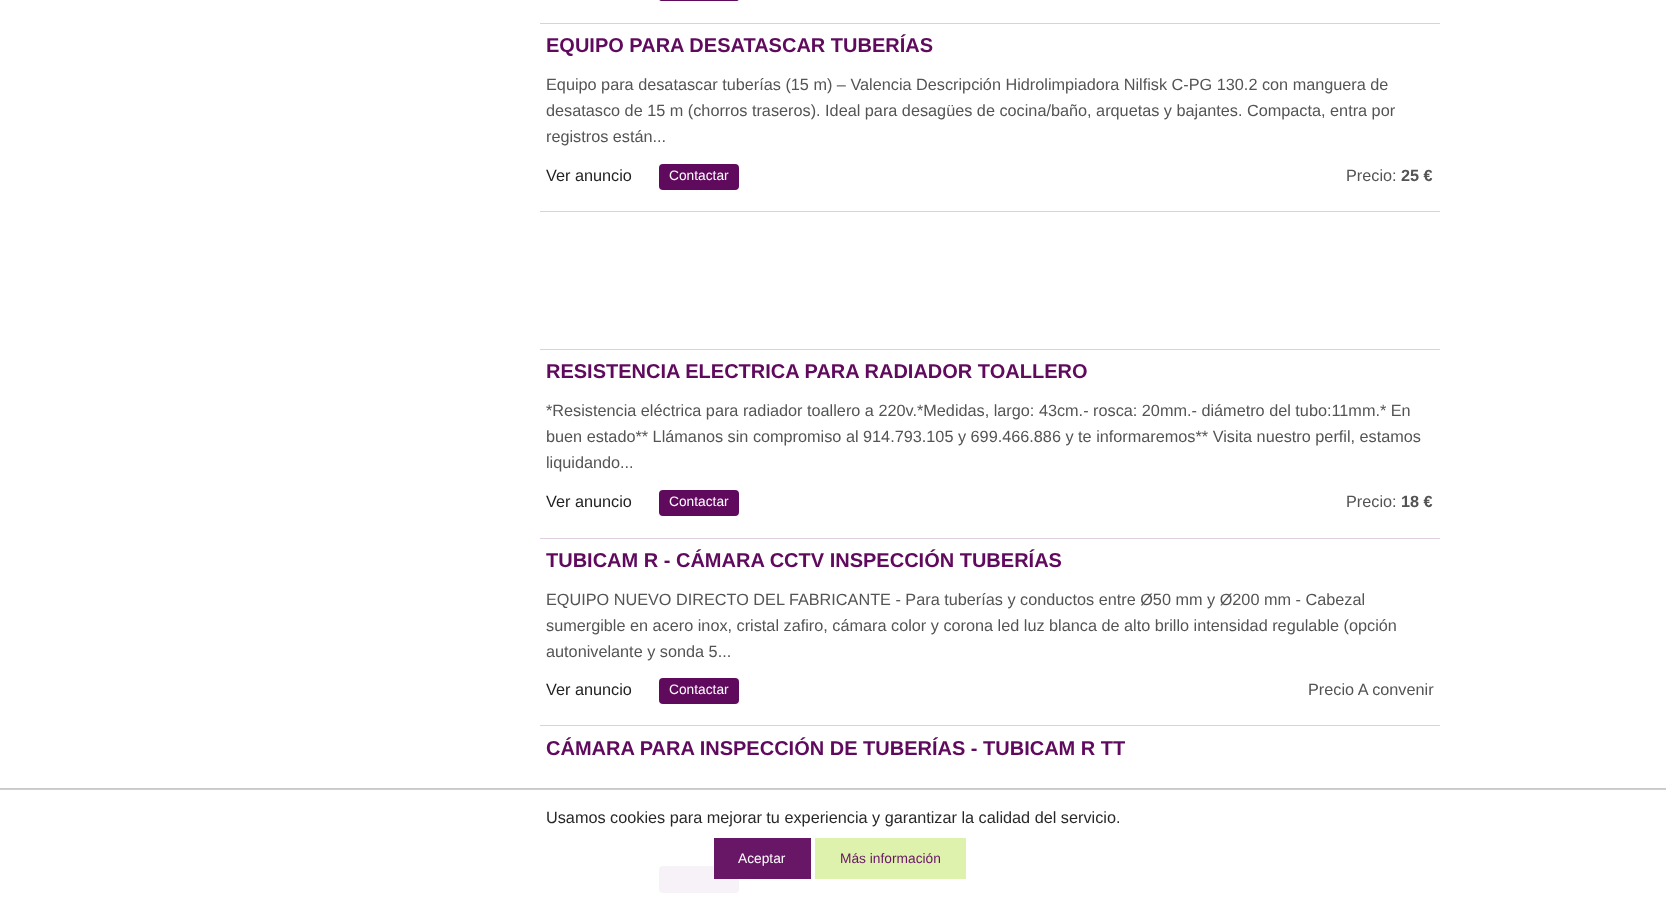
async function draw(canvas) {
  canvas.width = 1666
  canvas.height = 909
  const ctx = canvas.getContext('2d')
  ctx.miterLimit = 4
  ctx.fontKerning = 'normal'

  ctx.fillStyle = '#fff'
  ctx.fillRect(0, 0, 1666, 909)
  ctx.fillStyle = '#600a5e'
  ctx.beginPath()
  ctx.roundRect(659, -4, 80, 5, 4)
  ctx.fill()
  ctx.fillStyle = '#dfcedf'
  ctx.fillRect(540, 23, 900, 1)
  ctx.font = 'bold 20px Liberation Sans'
  ctx.fillStyle = '#600a5e'
  ctx.fillText('EQUIPO PARA DESATASCAR TUBERÍAS', 546, 52)
  ctx.font = '16.25px Liberation Sans'
  ctx.fillStyle = '#545454'
  ctx.fillText('Equipo para desatascar tuberías (15 m) – Valencia Descripción Hidrolimpiadora Nilfisk C-PG 130.2 con manguera de', 546, 90)
  ctx.fillText('desatasco de 15 m (chorros traseros). Ideal para desagües de cocina/baño, arquetas y bajantes. Compacta, entra por', 546, 116)
  ctx.fillText('registros están...', 546, 142)
  ctx.fillStyle = '#222'
  ctx.fillText('Ver anuncio', 546, 181)
  ctx.fillStyle = '#600a5e'
  ctx.beginPath()
  ctx.roundRect(659, 164, 80, 26, 4)
  ctx.fill()
  ctx.font = '13.75px Liberation Sans'
  ctx.fillStyle = '#fff'
  ctx.fillText('Contactar', 669, 180)
  ctx.font = '16.25px Liberation Sans'
  ctx.fillStyle = '#545454'
  ctx.fillText('Precio:', 1346, 181)
  ctx.font = 'bold 16.25px Liberation Sans'
  ctx.fillText('25 €', 1401, 181)
  ctx.fillStyle = '#dfcedf'
  ctx.fillRect(540, 211, 900, 1)
  ctx.fillRect(540, 349, 900, 1)
  ctx.font = 'bold 20px Liberation Sans'
  ctx.fillStyle = '#600a5e'
  ctx.fillText('RESISTENCIA ELECTRICA PARA RADIADOR TOALLERO', 546, 378)
  ctx.font = '16.25px Liberation Sans'
  ctx.fillStyle = '#545454'
  ctx.fillText('*Resistencia eléctrica para radiador toallero a 220v.*Medidas, largo: 43cm.- rosca: 20mm.- diámetro del tubo:11mm.* En', 546, 416)
  ctx.fillText('buen estado** Llámanos sin compromiso al 914.793.105 y 699.466.886 y te informaremos** Visita nuestro perfil, estamos', 546, 442)
  ctx.fillText('liquidando...', 546, 468)
  ctx.fillStyle = '#222'
  ctx.fillText('Ver anuncio', 546, 507)
  ctx.fillStyle = '#600a5e'
  ctx.beginPath()
  ctx.roundRect(659, 490, 80, 26, 4)
  ctx.fill()
  ctx.font = '13.75px Liberation Sans'
  ctx.fillStyle = '#fff'
  ctx.fillText('Contactar', 669, 506)
  ctx.font = '16.25px Liberation Sans'
  ctx.fillStyle = '#545454'
  ctx.fillText('Precio:', 1346, 507)
  ctx.font = 'bold 16.25px Liberation Sans'
  ctx.fillText('18 €', 1401, 507)
  ctx.fillStyle = '#dfcedf'
  ctx.fillRect(540, 538, 900, 1)
  ctx.font = 'bold 20px Liberation Sans'
  ctx.fillStyle = '#600a5e'
  ctx.fillText('TUBICAM R - CÁMARA CCTV INSPECCIÓN TUBERÍAS', 546, 567)
  ctx.font = '16.25px Liberation Sans'
  ctx.fillStyle = '#545454'
  ctx.fillText('EQUIPO NUEVO DIRECTO DEL FABRICANTE - Para tuberías y conductos entre Ø50 mm y Ø200 mm - Cabezal', 546, 605)
  ctx.fillText('sumergible en acero inox, cristal zafiro, cámara color y corona led luz blanca de alto brillo intensidad regulable (opción', 546, 631)
  ctx.fillText('autonivelante y sonda 5...', 546, 657)
  ctx.fillStyle = '#222'
  ctx.fillText('Ver anuncio', 546, 695)
  ctx.fillStyle = '#600a5e'
  ctx.beginPath()
  ctx.roundRect(659, 678, 80, 26, 4)
  ctx.fill()
  ctx.font = '13.75px Liberation Sans'
  ctx.fillStyle = '#fff'
  ctx.fillText('Contactar', 669, 694)
  ctx.font = '16.25px Liberation Sans'
  ctx.fillStyle = '#545454'
  ctx.fillText('Precio A convenir', 1308, 695)
  ctx.fillStyle = '#dfcedf'
  ctx.fillRect(540, 725, 900, 1)
  ctx.font = 'bold 20px Liberation Sans'
  ctx.fillStyle = '#600a5e'
  ctx.fillText('CÁMARA PARA INSPECCIÓN DE TUBERÍAS - TUBICAM R TT', 546, 755)
  ctx.beginPath()
  ctx.roundRect(659, 866, 80, 27, 4)
  ctx.fill()
  ctx.fillStyle = '#fffffff2'
  ctx.fillRect(659, 866, 80, 27)
  ctx.fillStyle = '#c6c6c6f2'
  ctx.fillRect(0, 788, 1666, 1)
  ctx.fillStyle = '#ccccccf2'
  ctx.fillRect(0, 789, 1666, 1)
  ctx.font = '16.25px Liberation Sans'
  ctx.fillStyle = '#282828'
  ctx.fillText('Usamos cookies para mejorar tu experiencia y garantizar la calidad del servicio.', 546, 823)
  ctx.fillStyle = '#600a5ef2'
  ctx.fillRect(714, 838, 97, 41)
  ctx.font = '13.75px Liberation Sans'
  ctx.fillStyle = '#fff'
  ctx.fillText('Aceptar', 738, 863)
  ctx.fillStyle = '#def2ad'
  ctx.fillRect(815, 838, 151, 41)
  ctx.fillStyle = '#681666'
  ctx.fillText('Más información', 840, 863)
}

draw(document.querySelector('canvas'))
